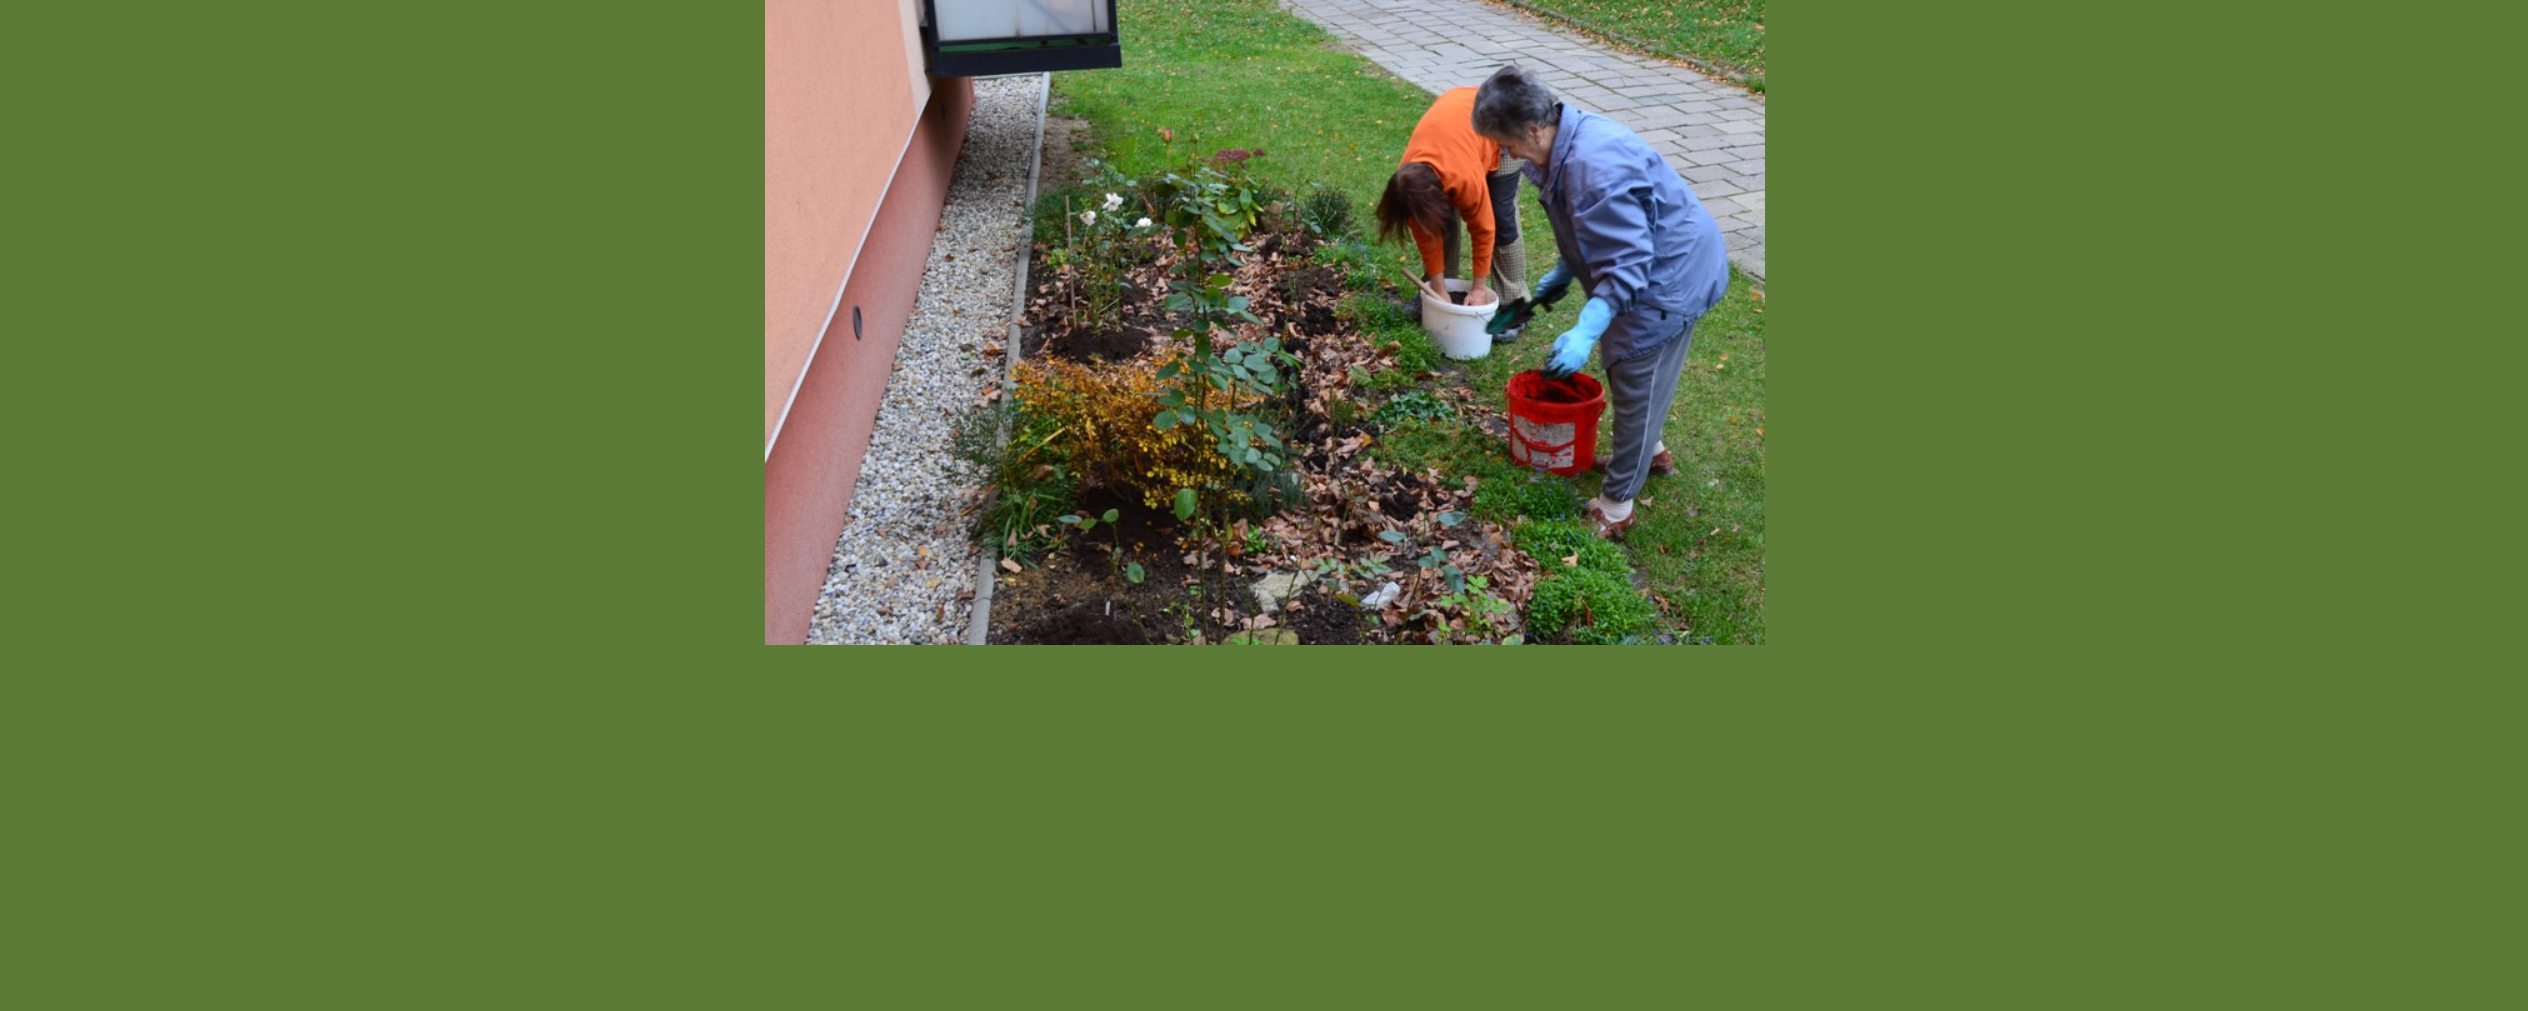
async function draw(canvas) {
  canvas.width = 2528
  canvas.height = 1011
  const ctx = canvas.getContext('2d')
  ctx.miterLimit = 4
  ctx.fontKerning = 'normal'
  async function loadImage(src) {
    const img = new Image()
    img.src = src
    await img.decode()
    return img
  }

  ctx.fillStyle = '#5c7b37'
  ctx.fillRect(0, 0, 2528, 1011)
  ctx.drawImage(await loadImage('image0.png'), 765, 0, 1000, 645)
}

draw(document.querySelector('canvas'))
